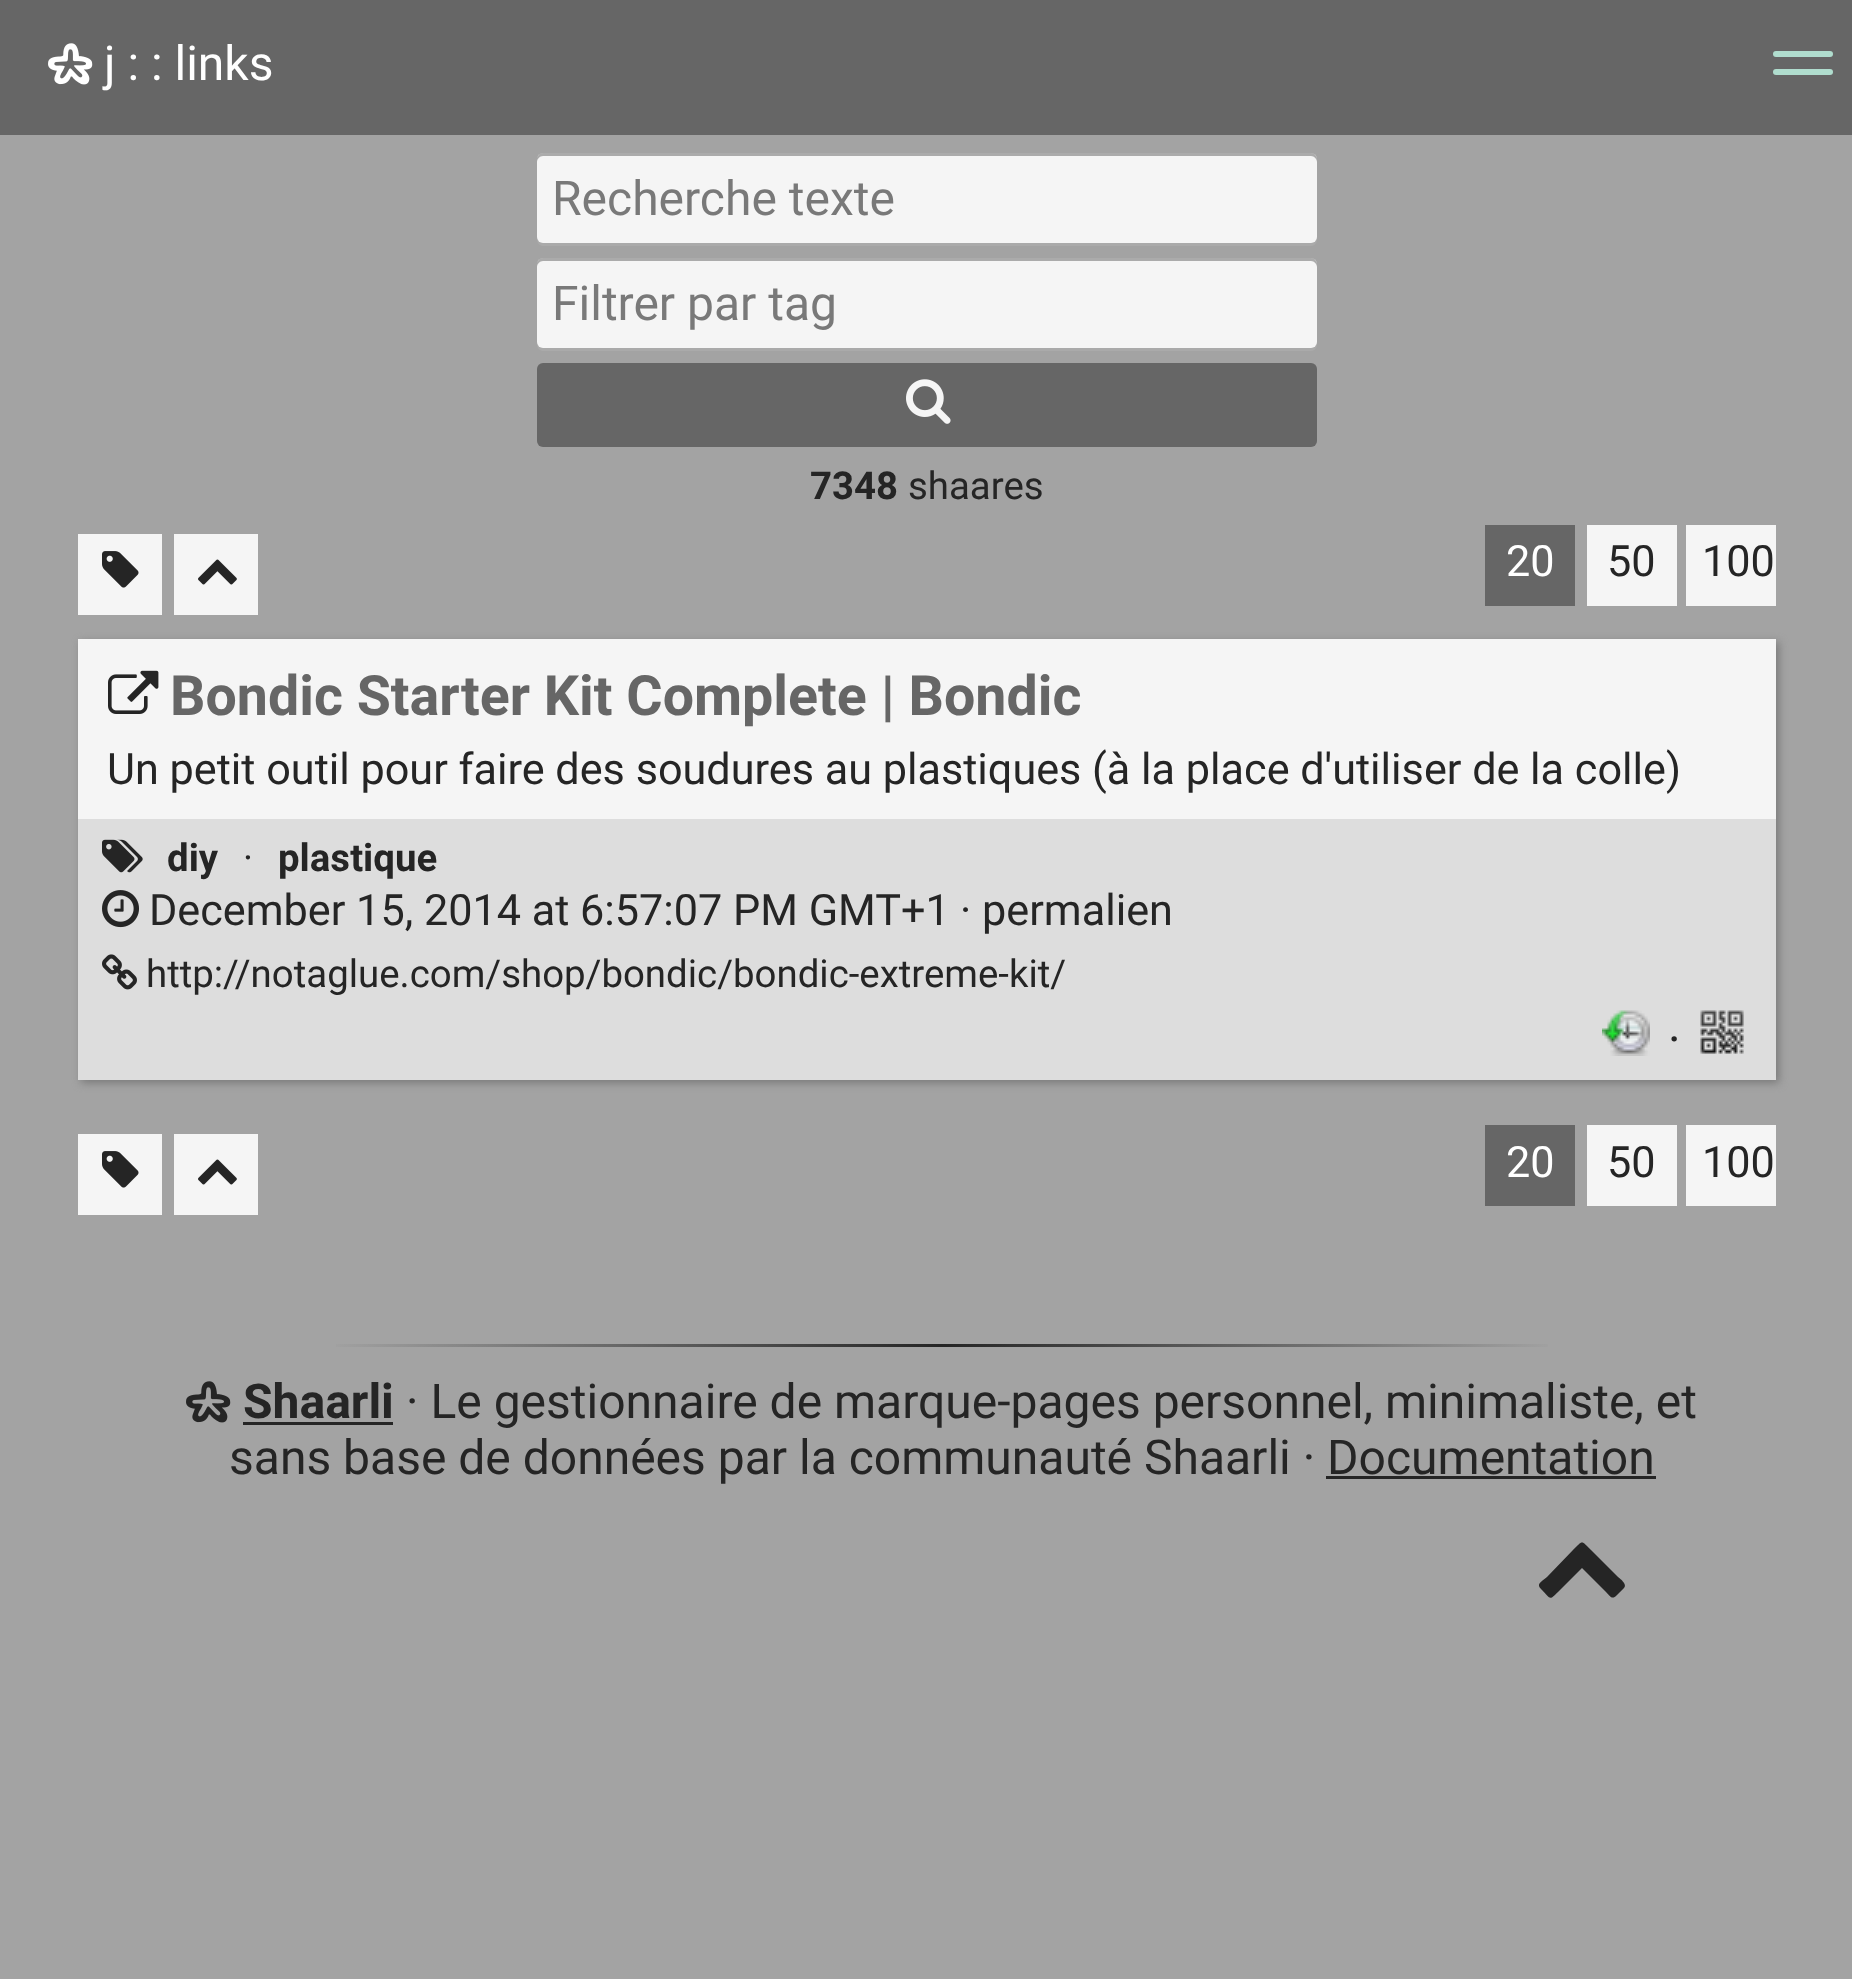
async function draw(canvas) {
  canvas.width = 1852
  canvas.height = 1979
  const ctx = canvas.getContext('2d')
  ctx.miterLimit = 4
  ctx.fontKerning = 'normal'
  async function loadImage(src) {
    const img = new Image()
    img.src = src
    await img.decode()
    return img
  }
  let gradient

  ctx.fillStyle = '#a3a3a3'
  ctx.fillRect(0, 0, 1852, 1979)
  ctx.fillStyle = '#666'
  ctx.fillRect(0, 0, 1852, 135)
  ctx.drawImage(await loadImage('image0.png'), 48, 43, 45, 42)
  ctx.font = '48px Roboto'
  ctx.fillStyle = '#fff'
  ctx.fillText('j : : links', 104, 80)
  ctx.fillStyle = '#b0ddce'
  ctx.beginPath()
  ctx.roundRect(1773, 51, 60, 6, 3)
  ctx.fill()
  ctx.beginPath()
  ctx.roundRect(1773, 69, 60, 6, 3)
  ctx.fill()
  ctx.fillStyle = '#aaa'
  ctx.beginPath()
  ctx.moveTo(537, 237)
  ctx.lineTo(537, 240)
  ctx.bezierCurveTo(537, 243, 540, 246, 543, 246)
  ctx.lineTo(1311, 246)
  ctx.bezierCurveTo(1314, 246, 1317, 243, 1317, 240)
  ctx.lineTo(1317, 237)
  ctx.bezierCurveTo(1317, 240, 1314, 243, 1311, 243)
  ctx.lineTo(543, 243)
  ctx.bezierCurveTo(540, 243, 537, 240, 537, 237)
  ctx.closePath()
  ctx.fill()
  ctx.fillStyle = '#f5f5f5'
  ctx.beginPath()
  ctx.roundRect(537, 153, 780, 90, 6)
  ctx.fill()
  ctx.fillStyle = '#0000004d'
  ctx.beginPath()
  ctx.moveTo(543, 156)
  ctx.lineTo(1311, 156)
  ctx.bezierCurveTo(1314, 156, 1317, 159, 1317, 162)
  ctx.lineTo(1317, 159)
  ctx.bezierCurveTo(1317, 156, 1314, 153, 1311, 153)
  ctx.lineTo(543, 153)
  ctx.bezierCurveTo(540, 153, 537, 156, 537, 159)
  ctx.lineTo(537, 162)
  ctx.bezierCurveTo(537, 159, 540, 156, 543, 156)
  ctx.closePath()
  ctx.fill()
  ctx.fillStyle = '#797979'
  ctx.fillText('Recherche texte', 552, 215)
  ctx.fillStyle = '#aaa'
  ctx.beginPath()
  ctx.moveTo(537, 342)
  ctx.lineTo(537, 345)
  ctx.bezierCurveTo(537, 348, 540, 351, 543, 351)
  ctx.lineTo(1311, 351)
  ctx.bezierCurveTo(1314, 351, 1317, 348, 1317, 345)
  ctx.lineTo(1317, 342)
  ctx.bezierCurveTo(1317, 345, 1314, 348, 1311, 348)
  ctx.lineTo(543, 348)
  ctx.bezierCurveTo(540, 348, 537, 345, 537, 342)
  ctx.closePath()
  ctx.fill()
  ctx.fillStyle = '#f5f5f5'
  ctx.beginPath()
  ctx.roundRect(537, 258, 780, 90, 6)
  ctx.fill()
  ctx.fillStyle = '#0000004d'
  ctx.beginPath()
  ctx.moveTo(543, 261)
  ctx.lineTo(1311, 261)
  ctx.bezierCurveTo(1314, 261, 1317, 264, 1317, 267)
  ctx.lineTo(1317, 264)
  ctx.bezierCurveTo(1317, 261, 1314, 258, 1311, 258)
  ctx.lineTo(543, 258)
  ctx.bezierCurveTo(540, 258, 537, 261, 537, 264)
  ctx.lineTo(537, 267)
  ctx.bezierCurveTo(537, 264, 540, 261, 543, 261)
  ctx.closePath()
  ctx.fill()
  ctx.fillStyle = '#797979'
  ctx.fillText('Filtrer par tag', 552, 320)
  ctx.fillStyle = '#666'
  ctx.beginPath()
  ctx.roundRect(537, 363, 780, 84, 6)
  ctx.fill()
  ctx.drawImage(await loadImage('image1.png'), 906, 379, 45, 45)
  ctx.font = 'bold 38.4px Roboto'
  ctx.fillStyle = '#252525'
  ctx.fillText('7348', 810, 499)
  ctx.font = '38.4px Roboto'
  ctx.fillText('shaares', 908, 499)
  ctx.fillStyle = '#f5f5f5'
  ctx.fillRect(78, 534, 84, 81)
  ctx.drawImage(await loadImage('image2.png'), 102, 551, 37, 37)
  ctx.fillRect(174, 534, 84, 81)
  ctx.drawImage(await loadImage('image3.png'), 198, 559, 39, 26)
  ctx.fillStyle = '#666'
  ctx.fillRect(1485, 525, 90, 81)
  ctx.font = '43.2px Roboto'
  ctx.fillStyle = '#fff'
  ctx.fillText('20', 1506, 576)
  ctx.fillStyle = '#f5f5f5'
  ctx.fillRect(1587, 525, 90, 81)
  ctx.fillStyle = '#252525'
  ctx.fillText('50', 1607, 576)
  ctx.fillStyle = '#f5f5f5'
  ctx.fillRect(1686, 525, 90, 81)
  ctx.fillStyle = '#252525'
  ctx.fillText('100', 1702, 576)
  ctx.fillStyle = '#797979'
  ctx.filter = 'blur(4.5px)'
  ctx.beginPath()
  ctx.rect(81, 642, 1698, 441)
  ctx.fill()
  ctx.filter = 'none'
  ctx.fillStyle = '#f5f5f5'
  ctx.fillRect(78, 639, 1698, 180)
  ctx.drawImage(await loadImage('image4.png'), 108, 670, 51, 44)
  ctx.font = 'bold 55.5px Roboto'
  ctx.fillStyle = '#666'
  ctx.fillText('Bondic Starter Kit Complete | Bondic', 170, 715)
  ctx.font = '43.2px Roboto'
  ctx.fillStyle = '#252525'
  ctx.fillText('Un petit outil pour faire des soudures au plastiques (à la place d\'utiliser de la colle)', 107, 784)
  ctx.fillStyle = '#ddd'
  ctx.fillRect(78, 819, 1698, 261)
  ctx.drawImage(await loadImage('image5.png'), 102, 839, 41, 34)
  ctx.font = 'bold 38.4px Roboto'
  ctx.fillStyle = '#252525'
  ctx.fillText('diy', 167, 871)
  ctx.font = '38.4px Roboto'
  ctx.fillText('·', 243, 871)
  ctx.font = 'bold 38.4px Roboto'
  ctx.fillText('plastique', 278, 871)
  ctx.drawImage(await loadImage('image6.png'), 102, 890, 37, 38)
  ctx.font = '43.2px Roboto'
  ctx.fillText('December 15, 2014 at 6:57:07 PM GMT+1', 149, 925)
  ctx.fillText('· permalien', 960, 925)
  ctx.drawImage(await loadImage('image7.png'), 102, 954, 35, 36)
  ctx.font = '38.4px Roboto'
  ctx.fillText('http://notaglue.com/shop/bondic/bondic-extreme-kit/', 146, 987)
  ctx.drawImage(await loadImage('image8.png'), 1602, 1010, 48, 46)
  ctx.font = '48px Roboto'
  ctx.fillText('·', 1668, 1056)
  ctx.drawImage(await loadImage('image9.png'), 1700, 1010, 44, 44)
  ctx.fillStyle = '#f5f5f5'
  ctx.fillRect(78, 1134, 84, 81)
  ctx.drawImage(await loadImage('image2.png'), 102, 1151, 37, 37)
  ctx.fillRect(174, 1134, 84, 81)
  ctx.drawImage(await loadImage('image3.png'), 198, 1159, 39, 26)
  ctx.fillStyle = '#666'
  ctx.fillRect(1485, 1125, 90, 81)
  ctx.font = '43.2px Roboto'
  ctx.fillStyle = '#fff'
  ctx.fillText('20', 1506, 1177)
  ctx.fillStyle = '#f5f5f5'
  ctx.fillRect(1587, 1125, 90, 81)
  ctx.fillStyle = '#252525'
  ctx.fillText('50', 1607, 1177)
  ctx.fillStyle = '#f5f5f5'
  ctx.fillRect(1686, 1125, 90, 81)
  ctx.fillStyle = '#252525'
  ctx.fillText('100', 1702, 1177)
  gradient = ctx.createLinearGradient(324, 1346, 1560, 1346)
  gradient.addColorStop(0, '#a3a3a3')
  gradient.addColorStop(0.5, '#252525')
  gradient.addColorStop(1, '#a3a3a3')
  ctx.fillStyle = gradient
  ctx.fillRect(336, 1344, 1212, 3)
  ctx.drawImage(await loadImage('image10.png'), 186, 1381, 45, 42)
  ctx.font = 'bold 48px Roboto'
  ctx.fillStyle = '#252525'
  ctx.fillText('Shaarli', 243, 1418)
  ctx.fillRect(243, 1422, 150, 3)
  ctx.font = '48px Roboto'
  ctx.fillText('· Le gestionnaire de marque-pages personnel, minimaliste, et', 406, 1418)
  ctx.fillText('sans base de données par la communauté Shaarli · Documentation', 229, 1474)
  ctx.fillRect(1326, 1476, 330, 3)
  ctx.beginPath()
  ctx.moveTo(1624, 1588)
  ctx.lineTo(1617, 1595)
  ctx.bezierCurveTo(1612, 1600, 1611, 1597, 1606, 1592)
  ctx.lineTo(1582, 1568)
  ctx.lineTo(1558, 1592)
  ctx.bezierCurveTo(1549, 1601, 1551, 1599, 1541, 1589)
  ctx.bezierCurveTo(1536, 1584, 1541, 1582, 1547, 1577)
  ctx.lineTo(1573, 1550)
  ctx.bezierCurveTo(1583, 1540, 1581, 1540, 1591, 1550)
  ctx.lineTo(1618, 1577)
  ctx.bezierCurveTo(1619, 1578, 1628, 1584, 1624, 1588)
  ctx.closePath()
  ctx.fill()
}

draw(document.querySelector('canvas'))
